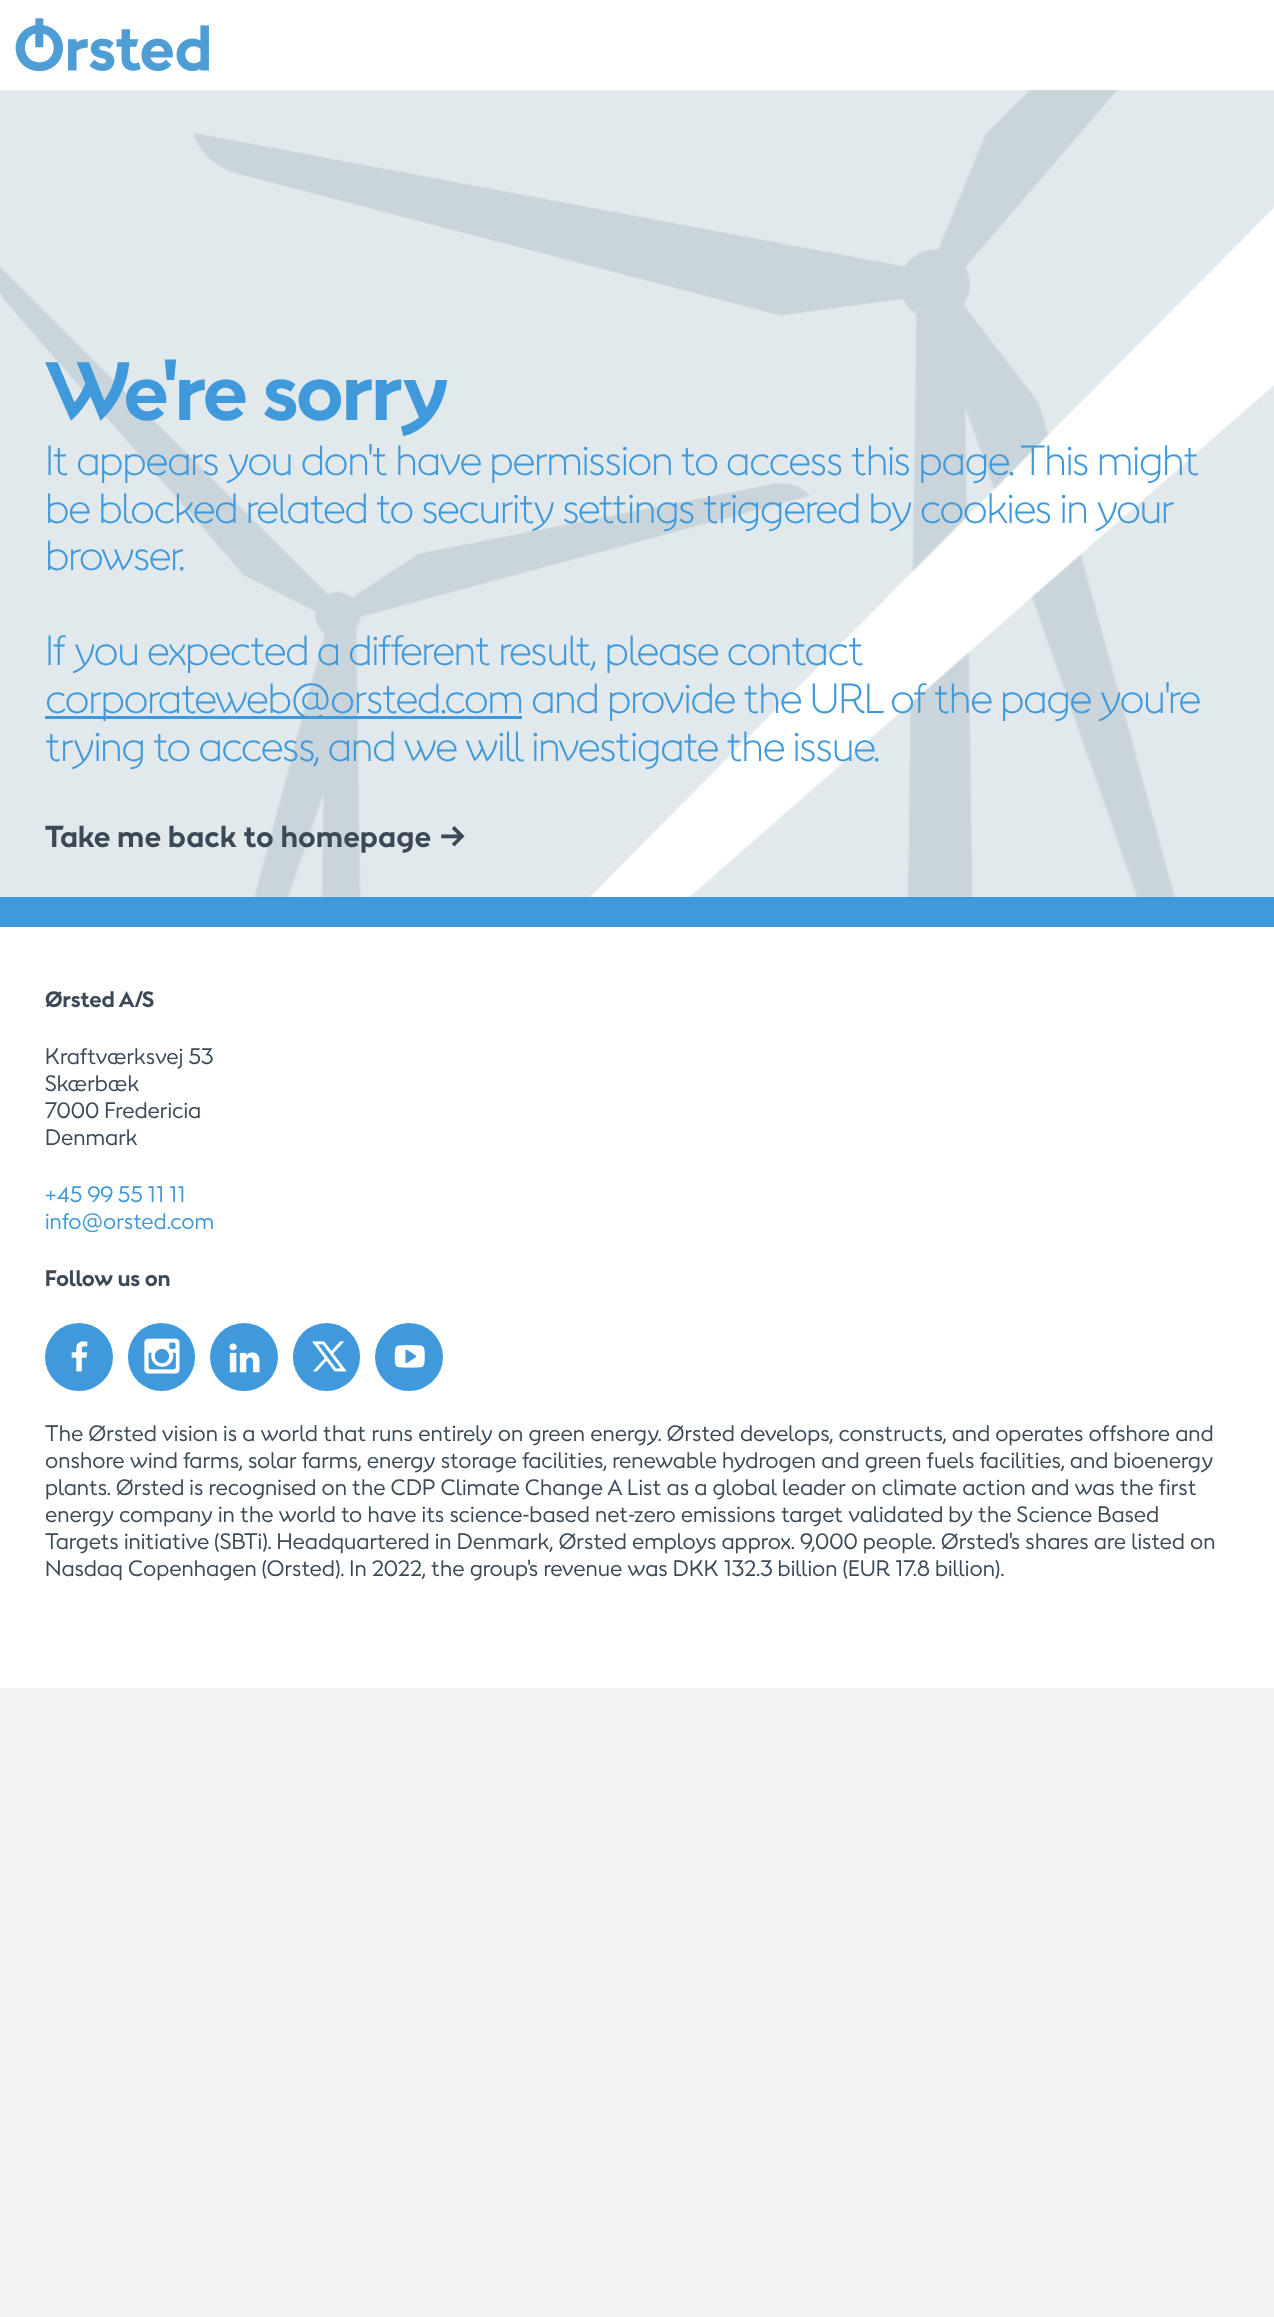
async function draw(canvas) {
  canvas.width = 1274
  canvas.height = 2317
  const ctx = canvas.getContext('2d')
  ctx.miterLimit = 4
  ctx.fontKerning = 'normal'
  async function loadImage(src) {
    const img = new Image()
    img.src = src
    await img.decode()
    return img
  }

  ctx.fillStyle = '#f3f3f3'
  ctx.fillRect(0, 0, 1274, 2317)
  ctx.fillStyle = '#fff'
  ctx.fillRect(0, 0, 1274, 1688)
  ctx.drawImage(await loadImage('image0.png'), 15, 18, 194, 54)
  ctx.drawImage(await loadImage('image1.png'), 0, 90, 1274, 807)
  ctx.letterSpacing = '-1.5px'
  ctx.font = 'bold 77.5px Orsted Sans'
  ctx.fillStyle = '#4099da'
  ctx.fillText('We\'re sorry', 45, 420)
  ctx.font = '300 39.6px Orsted Sans'
  ctx.fillText('It appears you don\'t have permission to access this page. This might', 45, 475)
  ctx.fillText('be blocked related to security settings triggered by cookies in your', 45, 523)
  ctx.fillText('browser.', 45, 570)
  ctx.fillText('If you expected a different result, please contact', 45, 665)
  ctx.fillRect(45, 716, 477, 3)
  ctx.fillText('corporateweb@orsted.com and provide the URL of the page you\'re', 45, 713)
  ctx.fillText('trying to access, and we will investigate the issue.', 45, 761)
  ctx.letterSpacing = '0.3px'
  ctx.font = 'bold 28.5px Orsted Sans'
  ctx.fillStyle = '#3b4956'
  ctx.fillText('Take me back to homepage', 45, 847)
  ctx.fillText('→', 439, 847)
  ctx.fillStyle = '#4099da'
  ctx.fillRect(0, 897, 1274, 30)
  ctx.letterSpacing = '0px'
  ctx.font = 'bold 21px Orsted Sans'
  ctx.fillStyle = '#3b4956'
  ctx.fillText('Ørsted A/S', 45, 1007)
  ctx.font = '21px Orsted Sans'
  ctx.fillText('Kraftværksvej 53', 45, 1064)
  ctx.fillText('Skærbæk', 45, 1091)
  ctx.fillText('7000 Fredericia', 45, 1118)
  ctx.fillText('Denmark', 45, 1145)
  ctx.fillStyle = '#4099da'
  ctx.fillText('+45 99 55 11 11', 45, 1202)
  ctx.fillText('info@orsted.com', 45, 1229)
  ctx.font = 'bold 21px Orsted Sans'
  ctx.fillStyle = '#3b4956'
  ctx.fillText('Follow us on', 45, 1286)
  ctx.fillStyle = '#4099da'
  ctx.beginPath()
  ctx.arc(79, 1357, 34, 0, 2 * Math.PI)
  ctx.fill()
  ctx.drawImage(await loadImage('image2.png'), 71, 1341, 17, 31)
  ctx.beginPath()
  ctx.roundRect(128, 1323, 67, 68, 33.5)
  ctx.fill()
  ctx.drawImage(await loadImage('image3.png'), 144, 1338, 36, 36)
  ctx.beginPath()
  ctx.arc(244, 1357, 34, 0, 2 * Math.PI)
  ctx.fill()
  ctx.drawImage(await loadImage('image4.png'), 229, 1343, 31, 30)
  ctx.beginPath()
  ctx.roundRect(293, 1323, 67, 68, 33.5)
  ctx.fill()
  ctx.drawImage(await loadImage('image5.png'), 312, 1341, 35, 31)
  ctx.beginPath()
  ctx.arc(409, 1357, 34, 0, 2 * Math.PI)
  ctx.fill()
  ctx.drawImage(await loadImage('image6.png'), 394, 1345, 31, 23)
  ctx.font = '21px Orsted Sans'
  ctx.fillStyle = '#3b4956'
  ctx.fillText('The Ørsted vision is a world that runs entirely on green energy. Ørsted develops, constructs, and operates offshore and', 45, 1441)
  ctx.fillText('onshore wind farms, solar farms, energy storage facilities, renewable hydrogen and green fuels facilities, and bioenergy', 45, 1468)
  ctx.fillText('plants. Ørsted is recognised on the CDP Climate Change A List as a global leader on climate action and was the first', 45, 1495)
  ctx.fillText('energy company in the world to have its science-based net-zero emissions target validated by the Science Based', 45, 1522)
  ctx.fillText('Targets initiative (SBTi). Headquartered in Denmark, Ørsted employs approx. 9,000 people. Ørsted\'s shares are listed on', 45, 1549)
  ctx.fillText('Nasdaq Copenhagen (Orsted). In 2022, the group\'s revenue was DKK 132.3 billion (EUR 17.8 billion).', 45, 1576)
}

draw(document.querySelector('canvas'))
